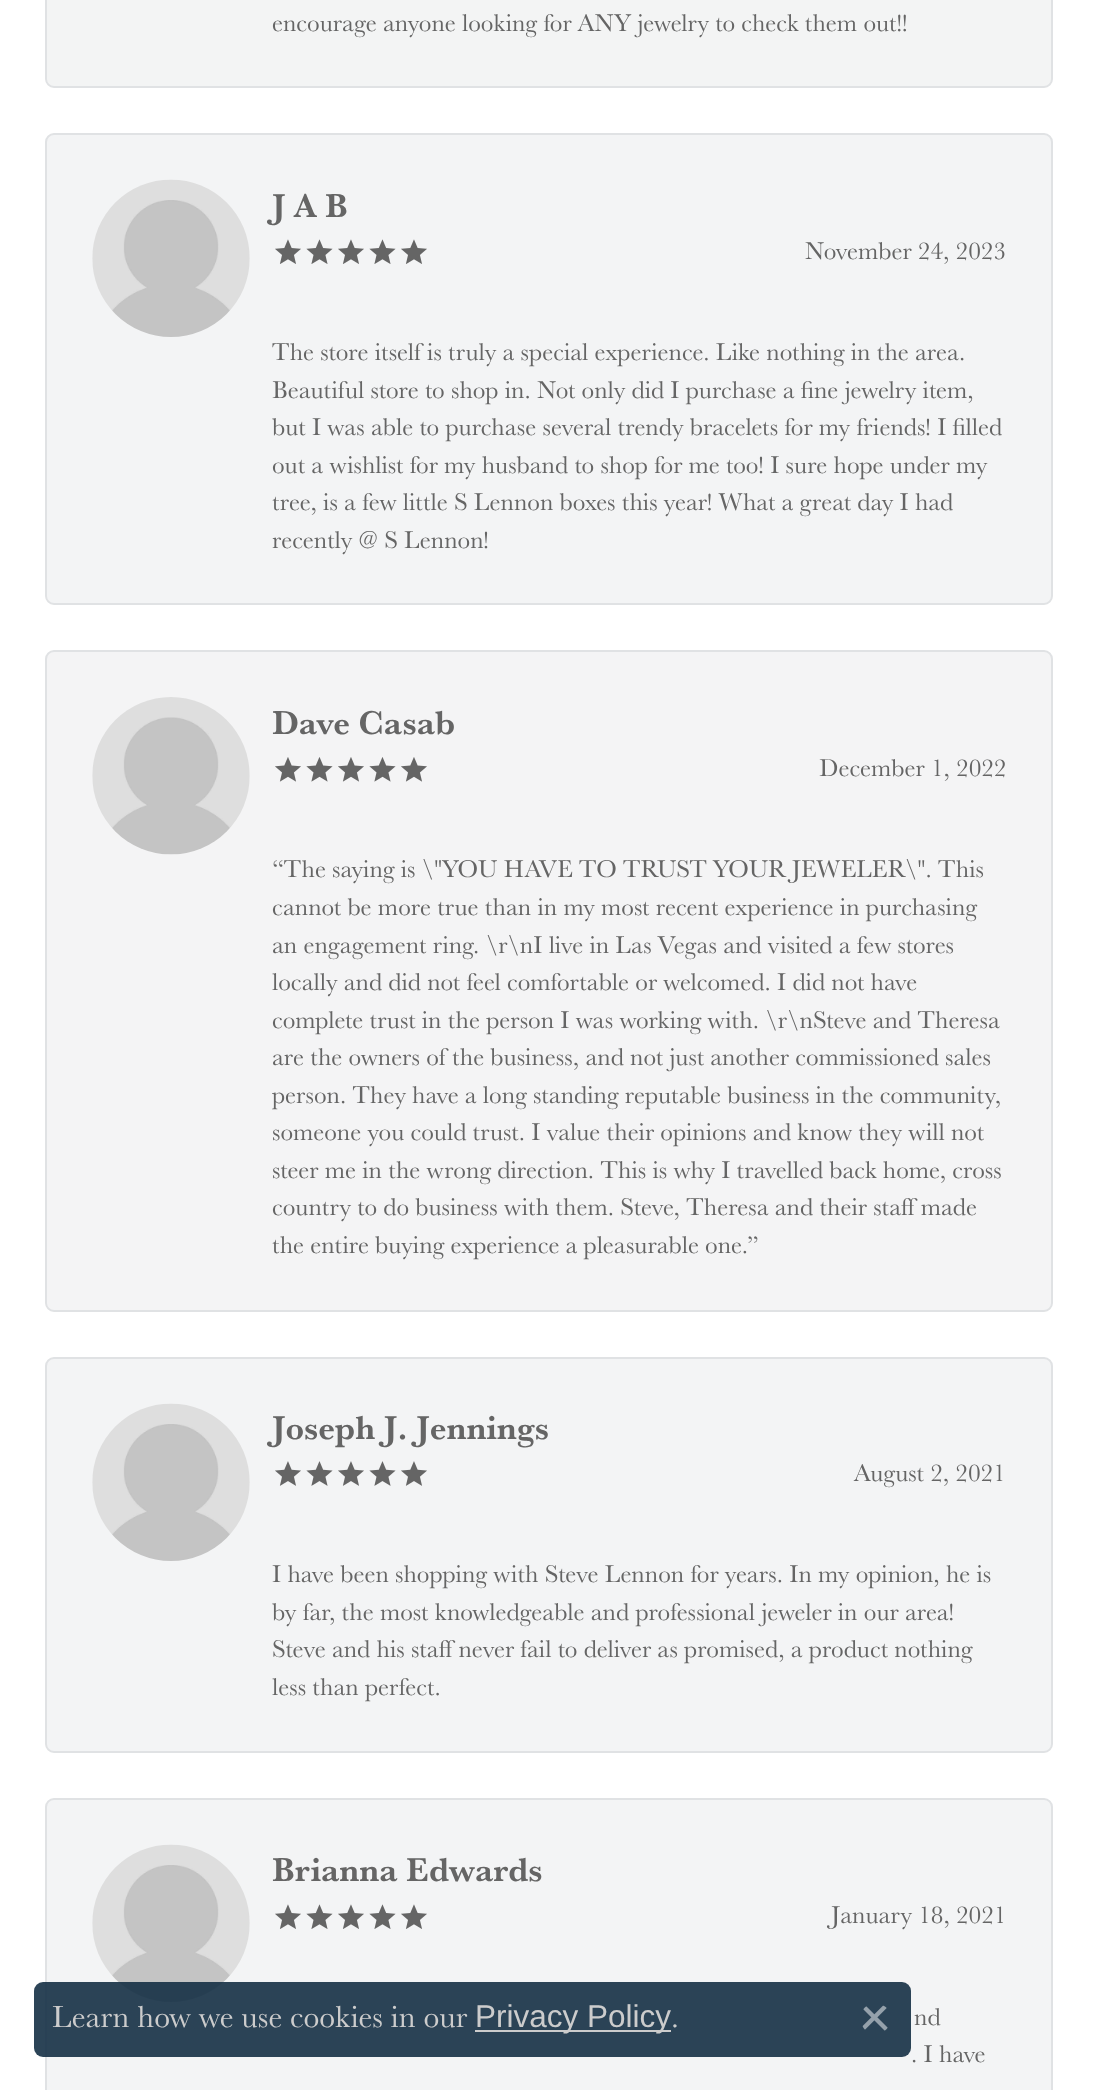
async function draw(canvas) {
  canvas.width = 1097
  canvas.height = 2090
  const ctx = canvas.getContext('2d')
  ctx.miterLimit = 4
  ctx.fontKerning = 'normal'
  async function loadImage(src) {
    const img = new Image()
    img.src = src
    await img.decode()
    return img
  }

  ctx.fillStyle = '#fff'
  ctx.fillRect(0, 0, 1097, 2090)
  ctx.fillStyle = '#f3f4f4'
  ctx.beginPath()
  ctx.roundRect(46, -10, 1006, 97, 8)
  ctx.fill()
  ctx.strokeStyle = '#e0e2e4'
  ctx.lineWidth = 2
  ctx.stroke()
  ctx.font = '25.05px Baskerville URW'
  ctx.fillStyle = '#656565'
  ctx.fillText('encourage anyone looking for ANY jewelry to check them out!!', 272, 31)
  ctx.fillStyle = '#f3f4f5'
  ctx.beginPath()
  ctx.roundRect(46, 134, 1006, 470, 8)
  ctx.fill()
  ctx.stroke()
  ctx.drawImage(await loadImage('image0.png'), 92, 179, 158, 158)
  ctx.font = 'bold 34.25px Baskerville URW'
  ctx.fillStyle = '#656565'
  ctx.fillText('J A B', 272, 217)
  ctx.drawImage(await loadImage('image1.png'), 275, 239, 26, 25)
  ctx.drawImage(await loadImage('image2.png'), 306, 239, 27, 25)
  ctx.drawImage(await loadImage('image1.png'), 338, 239, 26, 25)
  ctx.drawImage(await loadImage('image2.png'), 369, 239, 27, 25)
  ctx.drawImage(await loadImage('image1.png'), 401, 239, 26, 25)
  ctx.font = '25.05px Baskerville URW'
  ctx.fillText('November 24, 2023', 805, 259)
  ctx.fillText('The store itself is truly a special experience. Like nothing in the area.', 272, 360)
  ctx.fillText('Beautiful store to shop in. Not only did I purchase a fine jewelry item,', 272, 398)
  ctx.fillText('but I was able to purchase several trendy bracelets for my friends! I filled', 272, 435)
  ctx.fillText('out a wishlist for my husband to shop for me too! I sure hope under my', 272, 473)
  ctx.fillText('tree, is a few little S Lennon boxes this year! What a great day I had', 272, 510)
  ctx.fillText('recently @ S Lennon!', 272, 548)
  ctx.fillStyle = '#f4f4f5'
  ctx.beginPath()
  ctx.roundRect(46, 651, 1006, 660, 8)
  ctx.fill()
  ctx.stroke()
  ctx.drawImage(await loadImage('image3.png'), 92, 697, 158, 158)
  ctx.font = 'bold 34.25px Baskerville URW'
  ctx.fillStyle = '#656565'
  ctx.fillText('Dave Casab', 272, 734)
  ctx.drawImage(await loadImage('image4.png'), 275, 757, 26, 25)
  ctx.drawImage(await loadImage('image5.png'), 306, 757, 27, 25)
  ctx.drawImage(await loadImage('image4.png'), 338, 757, 26, 25)
  ctx.drawImage(await loadImage('image5.png'), 369, 757, 27, 25)
  ctx.drawImage(await loadImage('image4.png'), 401, 757, 26, 25)
  ctx.font = '25.05px Baskerville URW'
  ctx.fillText('December 1, 2022', 819, 776)
  ctx.wordSpacing = '-0.1px'
  ctx.fillText('“The saying is \\"YOU HAVE TO TRUST YOUR JEWELER\\". This', 272, 877)
  ctx.wordSpacing = '0px'
  ctx.fillText('cannot be more true than in my most recent experience in purchasing', 272, 915)
  ctx.fillText('an engagement ring. \\r\\nI live in Las Vegas and visited a few stores', 272, 953)
  ctx.fillText('locally and did not feel comfortable or welcomed. I did not have', 272, 990)
  ctx.fillText('complete trust in the person I was working with. \\r\\nSteve and Theresa', 272, 1028)
  ctx.fillText('are the owners of the business, and not just another commissioned sales', 272, 1065)
  ctx.wordSpacing = '-0.1px'
  ctx.fillText('person. They have a long standing reputable business in the community,', 272, 1103)
  ctx.wordSpacing = '0px'
  ctx.fillText('someone you could trust. I value their opinions and know they will not', 272, 1140)
  ctx.fillText('steer me in the wrong direction. This is why I travelled back home, cross', 272, 1178)
  ctx.fillText('country to do business with them. Steve, Theresa and their staff made', 272, 1215)
  ctx.wordSpacing = '-0.1px'
  ctx.fillText('the entire buying experience a pleasurable one.”', 272, 1253)
  ctx.fillStyle = '#f3f4f5'
  ctx.beginPath()
  ctx.roundRect(46, 1358, 1006, 394, 8)
  ctx.fill()
  ctx.stroke()
  ctx.drawImage(await loadImage('image6.png'), 92, 1403, 158, 158)
  ctx.wordSpacing = '0px'
  ctx.font = 'bold 34.25px Baskerville URW'
  ctx.fillStyle = '#656565'
  ctx.fillText('Joseph J. Jennings', 272, 1439)
  ctx.drawImage(await loadImage('image7.png'), 275, 1461, 26, 25)
  ctx.drawImage(await loadImage('image8.png'), 306, 1461, 27, 25)
  ctx.drawImage(await loadImage('image7.png'), 338, 1461, 26, 25)
  ctx.drawImage(await loadImage('image8.png'), 369, 1461, 27, 25)
  ctx.drawImage(await loadImage('image7.png'), 401, 1461, 26, 25)
  ctx.font = '25.05px Baskerville URW'
  ctx.fillText('August 2, 2021', 854, 1481)
  ctx.fillText('I have been shopping with Steve Lennon for years. In my opinion, he is', 272, 1582)
  ctx.fillText('by far, the most knowledgeable and professional jeweler in our area!', 272, 1620)
  ctx.fillText('Steve and his staff never fail to deliver as promised, a product nothing', 272, 1657)
  ctx.fillText('less than perfect.', 272, 1695)
  ctx.fillStyle = '#f3f4f5'
  ctx.beginPath()
  ctx.roundRect(46, 1799, 1006, 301, 8)
  ctx.fill()
  ctx.stroke()
  ctx.drawImage(await loadImage('image9.png'), 92, 1844, 158, 158)
  ctx.font = 'bold 34.25px Baskerville URW'
  ctx.fillStyle = '#656565'
  ctx.fillText('Brianna Edwards', 272, 1881)
  ctx.drawImage(await loadImage('image1.png'), 275, 1904, 26, 25)
  ctx.drawImage(await loadImage('image2.png'), 306, 1904, 27, 25)
  ctx.drawImage(await loadImage('image1.png'), 338, 1904, 26, 25)
  ctx.drawImage(await loadImage('image2.png'), 369, 1904, 27, 25)
  ctx.drawImage(await loadImage('image1.png'), 401, 1904, 26, 25)
  ctx.font = '25.05px Baskerville URW'
  ctx.fillText('January 18, 2021', 831, 1923)
  ctx.fillText('nd', 914, 2025)
  ctx.fillText('. I have', 911, 2062)
  ctx.fillStyle = '#153045e6'
  ctx.beginPath()
  ctx.roundRect(34, 1982, 877, 75, 9)
  ctx.fill()
  ctx.font = '31.5px Baskerville URW'
  ctx.fillStyle = '#ccc'
  ctx.fillText('Learn how we use cookies in our', 52, 2027)
  ctx.fillRect(475, 2030, 196, 2)
  ctx.font = '31.5px Liberation Sans'
  ctx.fillText('Privacy Policy', 475, 2027)
  ctx.font = '31.5px Baskerville URW'
  ctx.fillText('.', 671, 2027)
  ctx.drawImage(await loadImage('image10.png'), 862, 2005, 26, 26)
}

draw(document.querySelector('canvas'))
